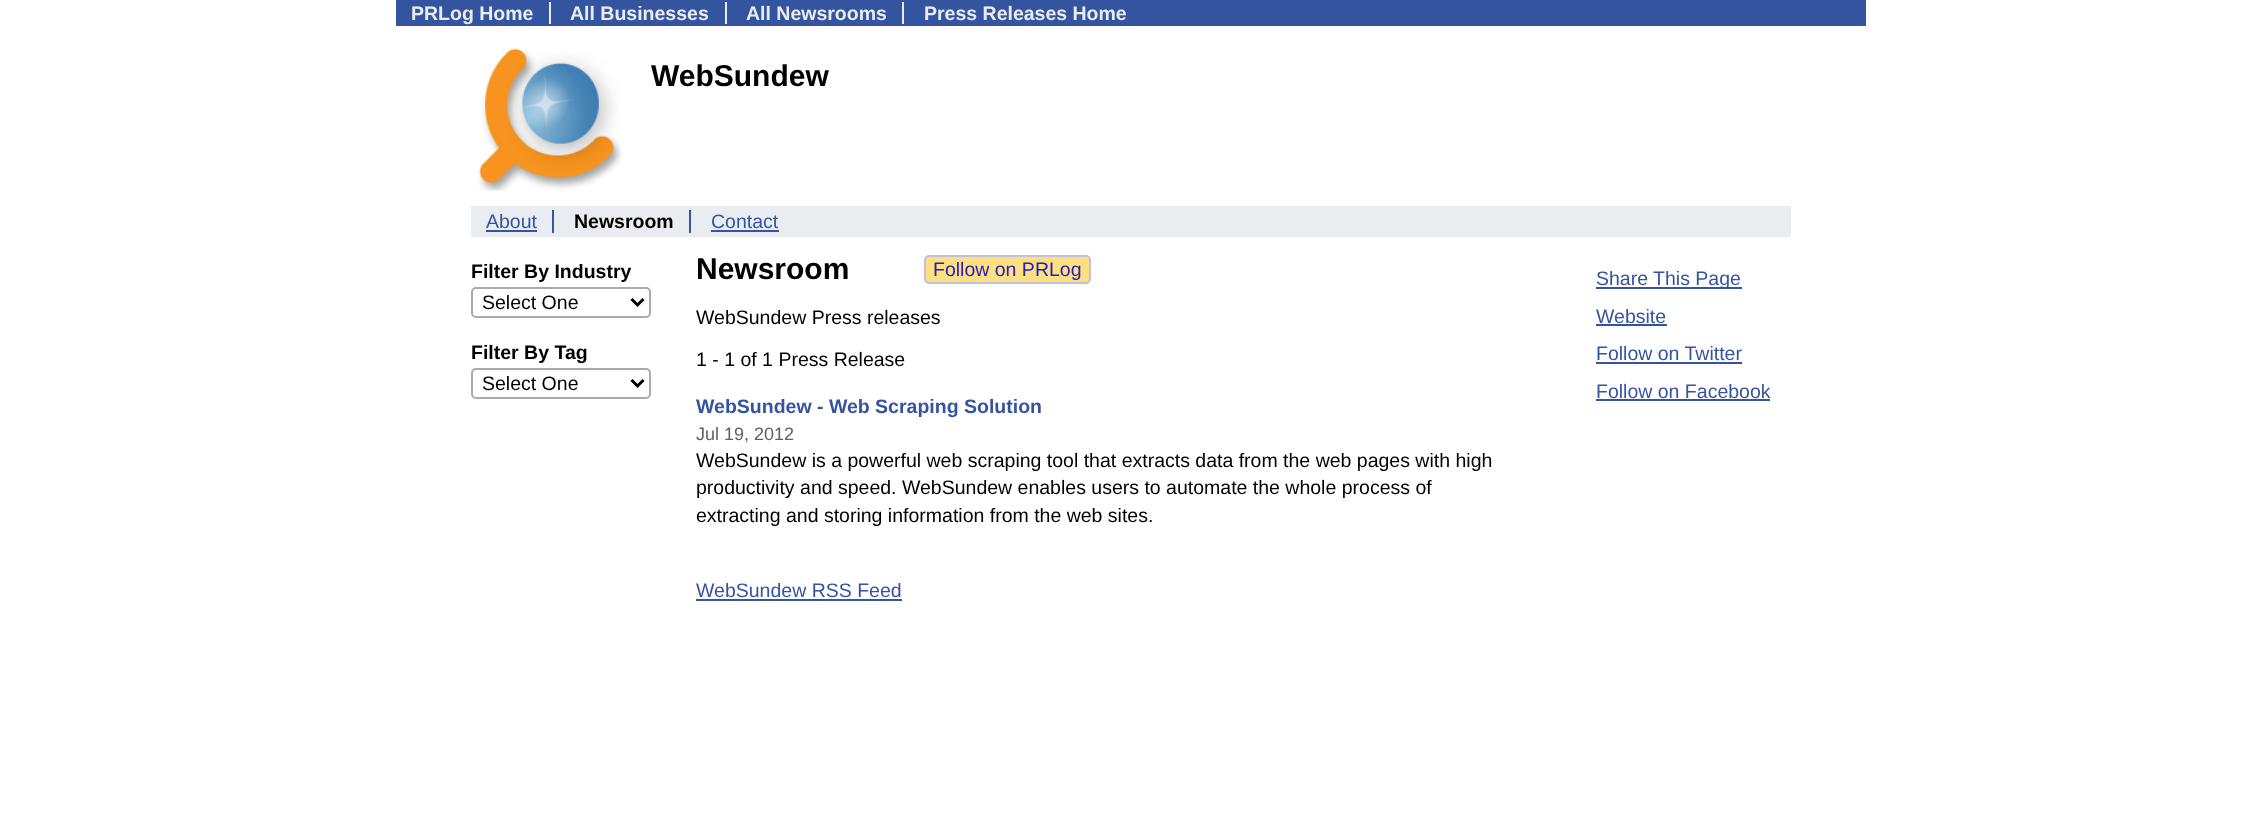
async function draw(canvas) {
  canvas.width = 2261
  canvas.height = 829
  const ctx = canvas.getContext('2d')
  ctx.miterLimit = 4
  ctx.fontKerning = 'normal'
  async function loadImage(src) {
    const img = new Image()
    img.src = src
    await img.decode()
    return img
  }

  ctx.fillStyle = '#fff'
  ctx.fillRect(0, 0, 2261, 829)
  ctx.fillStyle = '#3454a0'
  ctx.fillRect(396, 0, 1470, 26)
  ctx.fillStyle = '#e9edf2'
  ctx.fillRect(549, 2, 2, 22)
  ctx.font = 'bold 19.5px Liberation Sans'
  ctx.fillText('PRLog Home', 411, 20)
  ctx.fillRect(725, 2, 2, 22)
  ctx.fillText('All Businesses', 570, 20)
  ctx.fillRect(902, 2, 2, 22)
  ctx.fillText('All Newsrooms', 746, 20)
  ctx.fillText('Press Releases Home', 924, 20)
  ctx.drawImage(await loadImage('image0.png'), 478, 48, 143, 143)
  ctx.font = 'bold 30px Liberation Sans'
  ctx.fillStyle = '#000'
  ctx.fillText('WebSundew', 651, 86)
  ctx.fillStyle = '#e9edf2'
  ctx.fillRect(471, 206, 1320, 31)
  ctx.fillStyle = '#3454a0'
  ctx.fillRect(552, 210, 2, 23)
  ctx.font = '19.5px Liberation Sans'
  ctx.fillText('About', 486, 228)
  ctx.fillRect(486, 230, 51, 2)
  ctx.fillRect(689, 210, 2, 23)
  ctx.font = 'bold 19.5px Liberation Sans'
  ctx.fillStyle = '#000'
  ctx.fillText('Newsroom', 574, 228)
  ctx.font = '19.5px Liberation Sans'
  ctx.fillStyle = '#3454a0'
  ctx.fillText('Contact', 711, 228)
  ctx.fillRect(711, 230, 68, 2)
  ctx.font = 'bold 19.5px Liberation Sans'
  ctx.fillStyle = '#000'
  ctx.fillText('Filter By Industry', 471, 278)
  ctx.beginPath()
  ctx.roundRect(472, 288, 178, 29, 4)
  ctx.strokeStyle = '#aaa'
  ctx.lineWidth = 2
  ctx.stroke()
  ctx.beginPath()
  ctx.moveTo(631.5, 299)
  ctx.lineTo(637.5, 305)
  ctx.lineTo(643.5, 299)
  ctx.strokeStyle = '#000'
  ctx.lineWidth = 3
  ctx.stroke()
  ctx.font = '19.5px Liberation Sans'
  ctx.fillText('Select One', 482, 309)
  ctx.font = 'bold 19.5px Liberation Sans'
  ctx.fillText('Filter By Tag', 471, 359)
  ctx.beginPath()
  ctx.roundRect(472, 369, 178, 29, 4)
  ctx.strokeStyle = '#aaa'
  ctx.lineWidth = 2
  ctx.stroke()
  ctx.beginPath()
  ctx.moveTo(631.5, 380)
  ctx.lineTo(637.5, 386)
  ctx.lineTo(643.5, 380)
  ctx.strokeStyle = '#000'
  ctx.lineWidth = 3
  ctx.stroke()
  ctx.font = '19.5px Liberation Sans'
  ctx.fillText('Select One', 482, 390)
  ctx.font = 'bold 30px Liberation Sans'
  ctx.fillText('Newsroom', 696, 279)
  ctx.fillStyle = '#ffe080'
  ctx.beginPath()
  ctx.roundRect(925, 256, 165, 27, 4)
  ctx.fill()
  ctx.strokeStyle = '#c0c0e0'
  ctx.lineWidth = 2
  ctx.stroke()
  ctx.font = '19.5px Liberation Sans'
  ctx.fillStyle = '#2020c0'
  ctx.fillText('Follow on PRLog', 933, 276)
  ctx.fillStyle = '#000'
  ctx.fillText('WebSundew Press releases', 696, 324)
  ctx.fillText('1 - 1 of 1 Press Release', 696, 366)
  ctx.font = 'bold 19.5px Liberation Sans'
  ctx.fillStyle = '#3454a0'
  ctx.fillText('WebSundew - Web Scraping Solution', 696, 413)
  ctx.font = '18px Liberation Sans'
  ctx.fillStyle = '#606060'
  ctx.fillText('Jul 19, 2012', 696, 440)
  ctx.font = '19.5px Liberation Sans'
  ctx.fillStyle = '#000'
  ctx.fillText('WebSundew is a powerful web scraping tool that extracts data from the web pages with high', 696, 467)
  ctx.fillText('productivity and speed. WebSundew enables users to automate the whole process of', 696, 494)
  ctx.fillText('extracting and storing information from the web sites.', 696, 522)
  ctx.fillStyle = '#3454a0'
  ctx.fillText('WebSundew RSS Feed', 696, 597)
  ctx.fillRect(696, 599, 206, 2)
  ctx.fillRect(1596, 287, 146, 2)
  ctx.fillText('Share This Page', 1596, 285)
  ctx.fillText('Website', 1596, 323)
  ctx.fillRect(1596, 324, 71, 2)
  ctx.fillText('Follow on Twitter', 1596, 360)
  ctx.fillRect(1596, 362, 146, 2)
  ctx.fillText('Follow on Facebook', 1596, 398)
  ctx.fillRect(1596, 399, 174, 2)
}

draw(document.querySelector('canvas'))
